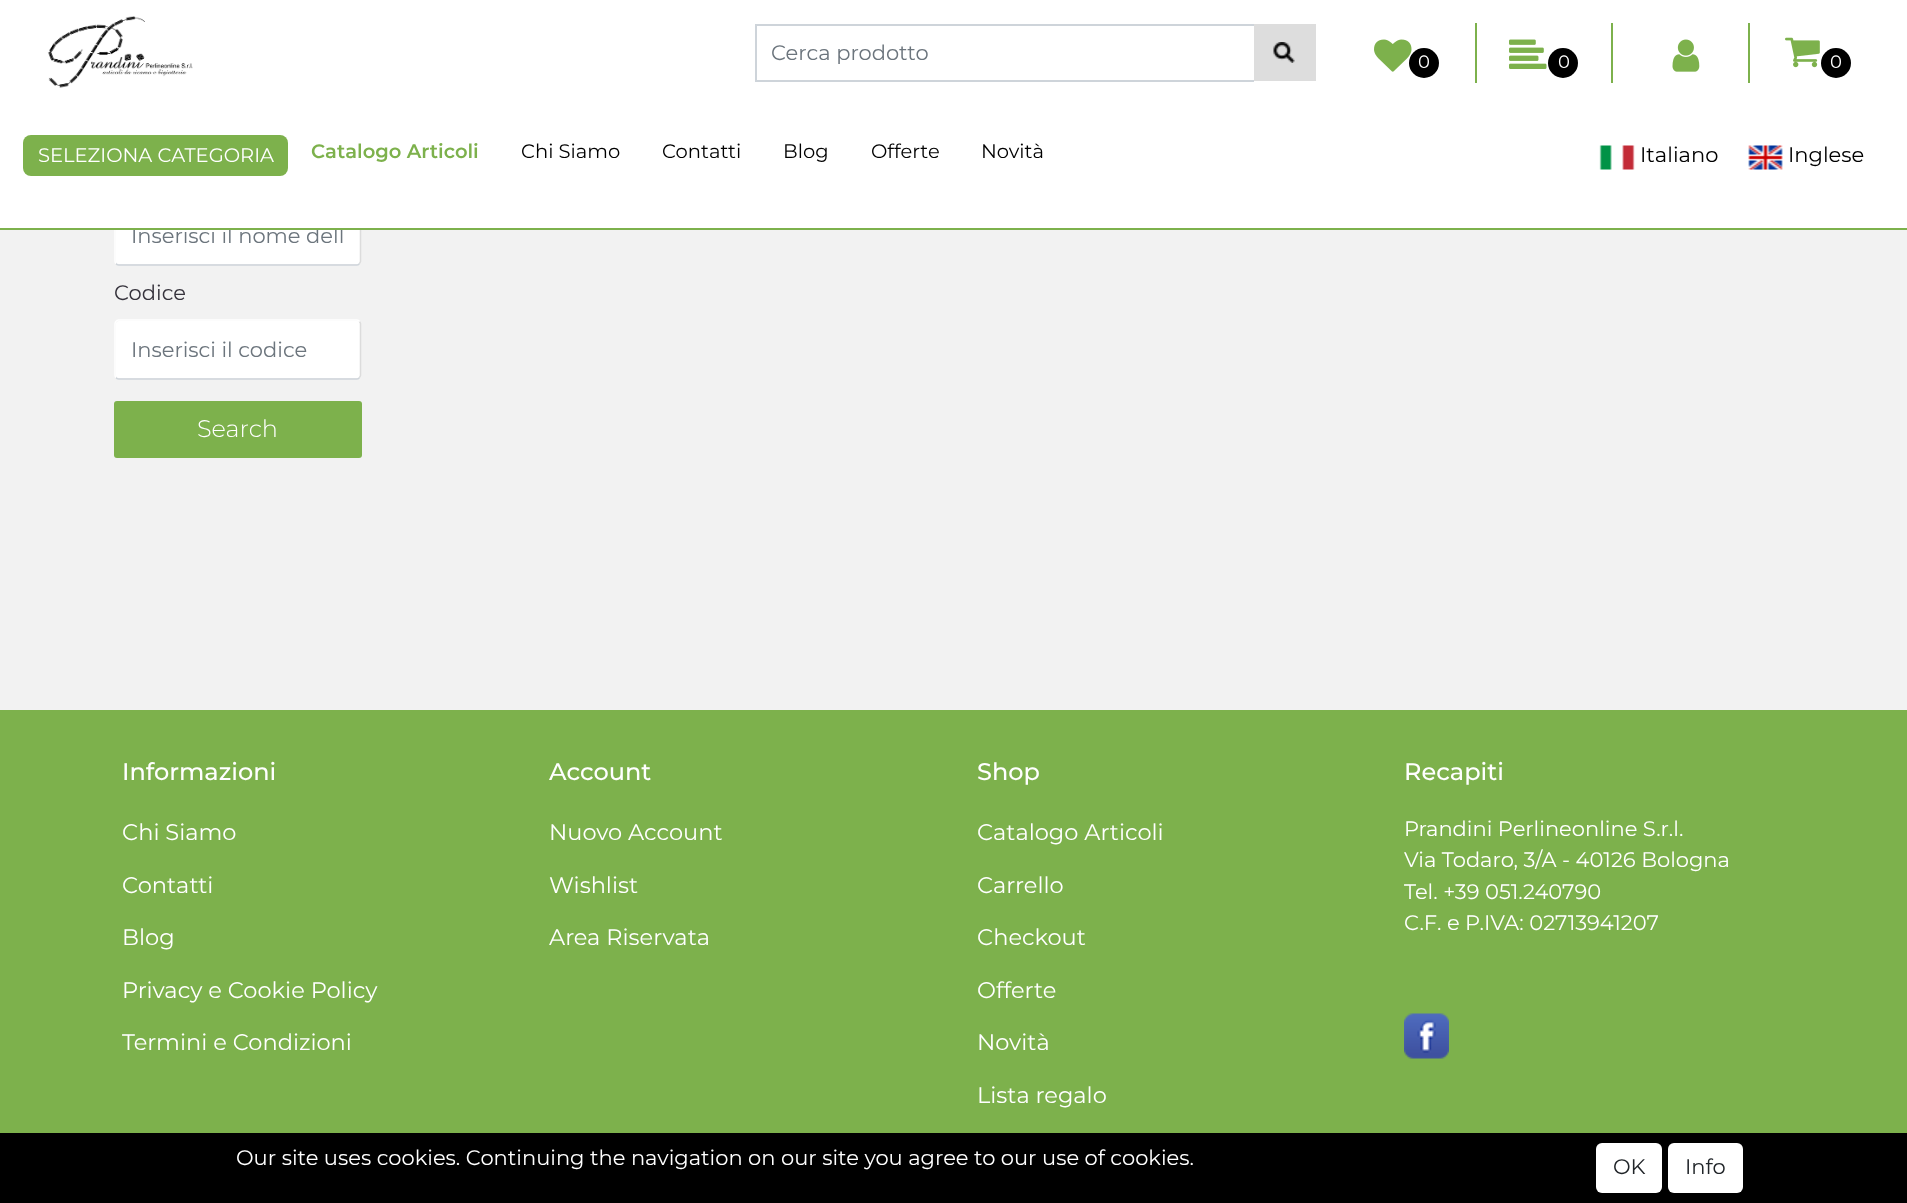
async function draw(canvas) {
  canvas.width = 1907
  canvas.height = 1203
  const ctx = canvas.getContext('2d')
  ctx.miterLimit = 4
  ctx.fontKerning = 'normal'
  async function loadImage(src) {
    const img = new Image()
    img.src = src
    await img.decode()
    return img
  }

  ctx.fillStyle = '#f2f2f2'
  ctx.fillRect(0, 0, 1907, 1203)
  ctx.fillStyle = '#fff'
  ctx.beginPath()
  ctx.roundRect(116, 207, 244, 57, 3)
  ctx.fill()
  ctx.beginPath()
  ctx.moveTo(359.5, 207.5)
  ctx.lineTo(360.5, 209.5)
  ctx.lineTo(360.5, 261.5)
  ctx.lineTo(359.5, 263.5)
  ctx.strokeStyle = '#dcdcdc'
  ctx.lineWidth = 1.5
  ctx.stroke()
  ctx.beginPath()
  ctx.moveTo(359.5, 263.5)
  ctx.bezierCurveTo(359, 264.5, 358, 265, 357, 265)
  ctx.lineTo(118.5, 265)
  ctx.bezierCurveTo(117.5, 265, 116.5, 264.5, 116, 263.5)
  ctx.strokeStyle = '#ced4da'
  ctx.stroke()
  ctx.beginPath()
  ctx.moveTo(116, 263.5)
  ctx.bezierCurveTo(115, 263, 115, 262, 115, 261)
  ctx.lineTo(115, 210)
  ctx.bezierCurveTo(115, 209, 115, 208, 116, 207.5)
  ctx.bezierCurveTo(116.5, 206.5, 117.5, 206, 118.5, 206)
  ctx.lineTo(357, 206)
  ctx.bezierCurveTo(358, 206, 359, 206.5, 359.5, 207.5)
  ctx.strokeStyle = '#fff'
  ctx.stroke()
  ctx.font = '21px Montserrat'
  ctx.fillStyle = '#6c757d'
  ctx.fillText('Inserisci il nome dell', 131, 243)
  ctx.fillStyle = '#fff'
  ctx.fillRect(0, 0, 1907, 228)
  ctx.fillStyle = '#7db14c'
  ctx.fillRect(0, 228, 1907, 2)
  ctx.drawImage(await loadImage('image0.png'), 47, 16, 146, 72)
  ctx.fillStyle = '#ced4da'
  ctx.fillRect(755, 24, 499, 2)
  ctx.fillRect(755, 80, 499, 2)
  ctx.fillRect(755, 24, 2, 57)
  ctx.fillStyle = '#6c757d'
  ctx.fillText('Cerca prodotto', 771, 60)
  ctx.fillStyle = '#ddd'
  ctx.fillRect(1254, 24, 62, 57)
  ctx.drawImage(await loadImage('image1.png'), 1273, 42, 22, 21)
  ctx.fillStyle = '#7db14c'
  ctx.fillRect(1475, 23, 2, 60)
  ctx.drawImage(await loadImage('image2.png'), 1374, 39, 38, 33)
  ctx.fillStyle = '#000'
  ctx.beginPath()
  ctx.arc(1424, 63, 15, 0, 2 * Math.PI)
  ctx.fill()
  ctx.font = '18px Montserrat'
  ctx.fillStyle = '#fff'
  ctx.fillText('0', 1418, 68)
  ctx.drawImage(await loadImage('image3.png'), 1509, 39, 38, 30)
  ctx.fillStyle = '#000'
  ctx.beginPath()
  ctx.arc(1563, 63, 15, 0, 2 * Math.PI)
  ctx.fill()
  ctx.fillStyle = '#fff'
  ctx.fillText('0', 1558, 68)
  ctx.fillStyle = '#7db14c'
  ctx.fillRect(1748, 23, 2, 60)
  ctx.fillRect(1611, 23, 2, 60)
  ctx.drawImage(await loadImage('image4.png'), 1672, 39, 28, 33)
  ctx.drawImage(await loadImage('image5.png'), 1785, 37, 35, 31)
  ctx.fillStyle = '#000'
  ctx.beginPath()
  ctx.arc(1836, 63, 15, 0, 2 * Math.PI)
  ctx.fill()
  ctx.fillStyle = '#fff'
  ctx.fillText('0', 1830, 68)
  ctx.fillStyle = '#7db14c'
  ctx.beginPath()
  ctx.roundRect(23, 135, 265, 41, 8)
  ctx.fill()
  ctx.font = '19.5px Montserrat'
  ctx.fillStyle = '#fff'
  ctx.fillText('SELEZIONA CATEGORIA', 38, 162)
  ctx.font = '600 19.5px Montserrat'
  ctx.fillStyle = '#7db14c'
  ctx.fillText('Catalogo Articoli', 311, 158)
  ctx.font = '19.5px Montserrat'
  ctx.fillStyle = '#000'
  ctx.fillText('Chi Siamo', 521, 158)
  ctx.fillText('Contatti', 662, 158)
  ctx.fillText('Blog', 783, 158)
  ctx.fillText('Offerte', 871, 158)
  ctx.fillText('Novità', 981, 158)
  ctx.drawImage(await loadImage('image6.png'), 1599, 145, 36, 25)
  ctx.font = '21px Montserrat'
  ctx.fillText('Italiano', 1640, 162)
  ctx.drawImage(await loadImage('image7.png'), 1748, 145, 35, 25)
  ctx.fillText('Inglese', 1788, 162)
  ctx.fillStyle = '#36333c'
  ctx.fillText('Codice', 114, 300)
  ctx.fillStyle = '#fff'
  ctx.beginPath()
  ctx.roundRect(116, 321, 244, 57, 3)
  ctx.fill()
  ctx.beginPath()
  ctx.moveTo(359.5, 321.5)
  ctx.lineTo(360.5, 323.5)
  ctx.lineTo(360.5, 375.5)
  ctx.lineTo(359.5, 377.5)
  ctx.strokeStyle = '#dcdcdc'
  ctx.stroke()
  ctx.beginPath()
  ctx.moveTo(359.5, 377.5)
  ctx.bezierCurveTo(359, 378.5, 358, 379, 357, 379)
  ctx.lineTo(118.5, 379)
  ctx.bezierCurveTo(117.5, 379, 116.5, 378.5, 116, 377.5)
  ctx.strokeStyle = '#ced4da'
  ctx.stroke()
  ctx.beginPath()
  ctx.moveTo(116, 377.5)
  ctx.bezierCurveTo(115, 377, 115, 376, 115, 375)
  ctx.lineTo(115, 324)
  ctx.bezierCurveTo(115, 323, 115, 322, 116, 321.5)
  ctx.bezierCurveTo(116.5, 320.5, 117.5, 320, 118.5, 320)
  ctx.lineTo(357, 320)
  ctx.bezierCurveTo(358, 320, 359, 320.5, 359.5, 321.5)
  ctx.strokeStyle = '#fff'
  ctx.stroke()
  ctx.fillStyle = '#6c757d'
  ctx.fillText('Inserisci il codice', 131, 357)
  ctx.fillStyle = '#7db14c'
  ctx.beginPath()
  ctx.roundRect(114, 401, 248, 57, 3)
  ctx.fill()
  ctx.font = '300 24px Montserrat'
  ctx.fillStyle = '#fff'
  ctx.fillText('Search', 197, 437)
  ctx.fillStyle = '#7db14c'
  ctx.fillRect(0, 710, 1907, 423)
  ctx.font = '500 24px Montserrat'
  ctx.fillStyle = '#fff'
  ctx.fillText('Informazioni', 122, 780)
  ctx.font = '22.5px Montserrat'
  ctx.fillText('Chi Siamo', 122, 840)
  ctx.fillText('Contatti', 122, 893)
  ctx.fillText('Blog', 122, 945)
  ctx.fillText('Privacy e Cookie Policy', 122, 998)
  ctx.fillText('Termini e Condizioni', 122, 1050)
  ctx.font = '500 24px Montserrat'
  ctx.fillText('Account', 549, 780)
  ctx.font = '22.5px Montserrat'
  ctx.fillText('Nuovo Account', 549, 840)
  ctx.fillText('Wishlist', 549, 893)
  ctx.fillText('Area Riservata', 549, 945)
  ctx.font = '500 24px Montserrat'
  ctx.fillText('Shop', 977, 780)
  ctx.font = '22.5px Montserrat'
  ctx.fillText('Catalogo Articoli', 977, 840)
  ctx.fillText('Carrello', 977, 893)
  ctx.fillText('Checkout', 977, 945)
  ctx.fillText('Offerte', 977, 998)
  ctx.fillText('Novità', 977, 1050)
  ctx.fillText('Lista regalo', 977, 1103)
  ctx.font = '500 24px Montserrat'
  ctx.fillText('Recapiti', 1404, 780)
  ctx.font = '21px Montserrat'
  ctx.fillText('Prandini Perlineonline S.r.l.', 1404, 836)
  ctx.fillText('Via Todaro, 3/A - 40126 Bologna', 1404, 867)
  ctx.fillText('Tel. +39 051.240790', 1404, 899)
  ctx.fillText('C.F. e P.IVA: 02713941207', 1404, 930)
  ctx.drawImage(await loadImage('image8.png'), 1404, 1013, 45, 46)
  ctx.fillStyle = '#000'
  ctx.fillRect(0, 1133, 1907, 70)
  ctx.fillStyle = '#fff'
  ctx.fillText('Our site uses cookies. Continuing the navigation on our site you agree to our use of cookies.', 236, 1165)
  ctx.beginPath()
  ctx.roundRect(1596, 1143, 66, 50, 6)
  ctx.fill()
  ctx.fillStyle = '#212529'
  ctx.fillText('OK', 1613, 1174)
  ctx.fillStyle = '#fff'
  ctx.beginPath()
  ctx.roundRect(1668, 1143, 75, 50, 6)
  ctx.fill()
  ctx.fillStyle = '#212529'
  ctx.fillText('Info', 1685, 1174)
}

draw(document.querySelector('canvas'))
